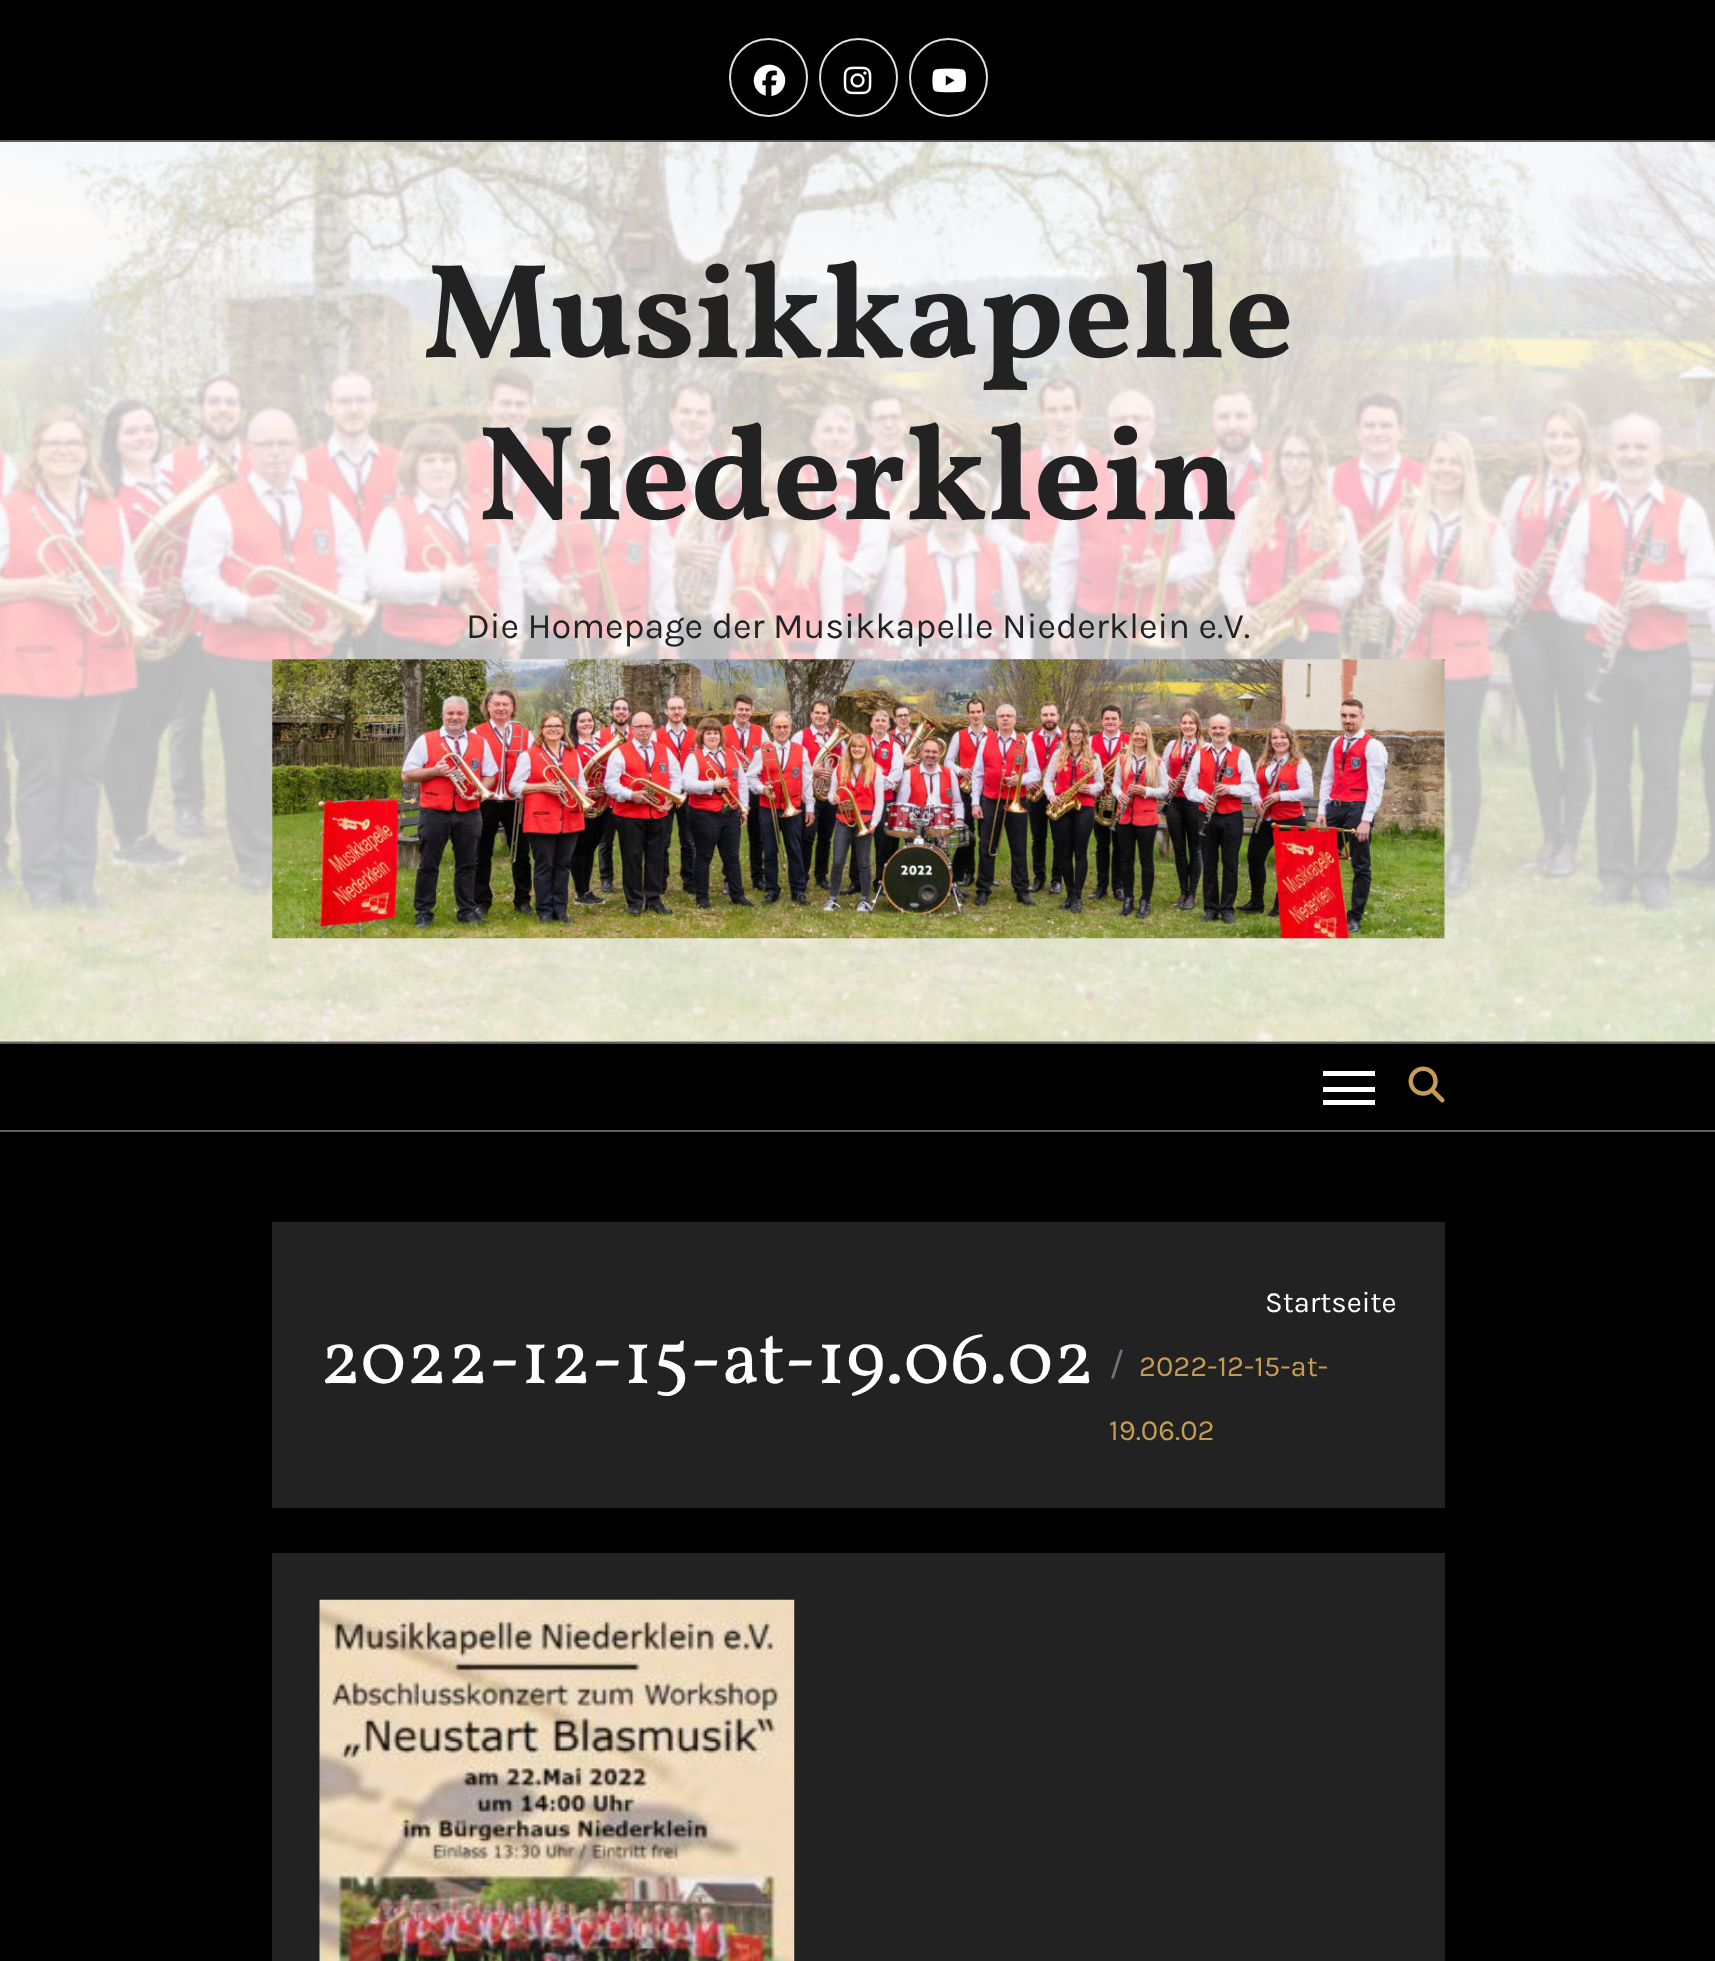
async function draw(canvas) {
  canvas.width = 1715
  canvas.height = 1961
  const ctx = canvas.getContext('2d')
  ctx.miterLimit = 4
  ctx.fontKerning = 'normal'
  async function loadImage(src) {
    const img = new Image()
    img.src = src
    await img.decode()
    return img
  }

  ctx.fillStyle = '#000'
  ctx.fillRect(0, 0, 1715, 1961)
  ctx.fillStyle = '#5d5d5d'
  ctx.fillRect(0, 140, 1715, 2)
  ctx.beginPath()
  ctx.arc(768.5, 77.5, 38.5, 0, 2 * Math.PI)
  ctx.strokeStyle = '#e0e0e0'
  ctx.lineWidth = 2
  ctx.stroke()
  ctx.drawImage(await loadImage('image0.png'), 753, 64, 33, 32)
  ctx.beginPath()
  ctx.arc(858.5, 77.5, 38.5, 0, 2 * Math.PI)
  ctx.stroke()
  ctx.drawImage(await loadImage('image1.png'), 843, 66, 29, 29)
  ctx.beginPath()
  ctx.arc(948.5, 77.5, 38.5, 0, 2 * Math.PI)
  ctx.stroke()
  ctx.drawImage(await loadImage('image2.png'), 932, 68, 34, 25)
  ctx.drawImage(await loadImage('image3.png'), 0, 142, 1715, 900)
  ctx.font = 'bold 135px Vollkorn'
  ctx.fillStyle = '#222'
  ctx.fillText('Musikkapelle', 423, 357)
  ctx.fillText('Niederklein', 478, 519)
  ctx.font = '36px Karla'
  ctx.fillText('Die Homepage der Musikkapelle Niederklein e.V.', 466, 638)
  ctx.drawImage(await loadImage('image4.png'), 272, 659, 1173, 280)
  ctx.fillStyle = '#5d5d5d'
  ctx.fillRect(0, 1042, 1715, 2)
  ctx.fillRect(0, 1130, 1715, 2)
  ctx.fillStyle = '#fff'
  ctx.fillRect(1323, 1071, 52, 5)
  ctx.fillRect(1323, 1087, 52, 5)
  ctx.fillRect(1323, 1100, 52, 5)
  ctx.drawImage(await loadImage('image5.png'), 1408, 1066, 37, 37)
  ctx.fillStyle = '#222'
  ctx.fillRect(272, 1222, 1173, 286)
  ctx.font = '76.5px Vollkorn'
  ctx.fillStyle = '#fff'
  ctx.fillText('2022-12-15-at-19.06.02', 320, 1383)
  ctx.font = '29.25px Karla'
  ctx.fillText('Startseite', 1265, 1312)
  ctx.font = '36px Karla'
  ctx.fillStyle = '#6c757d'
  ctx.fillText('/', 1109, 1376)
  ctx.font = '29.25px Karla'
  ctx.fillStyle = '#c69c53'
  ctx.fillText('2022-12-15-at-', 1139, 1376)
  ctx.fillText('19.06.02', 1109, 1440)
  ctx.fillStyle = '#222'
  ctx.fillRect(272, 1553, 1173, 408)
  ctx.drawImage(await loadImage('image6.png'), 319, 1599, 476, 362)
}

draw(document.querySelector('canvas'))
